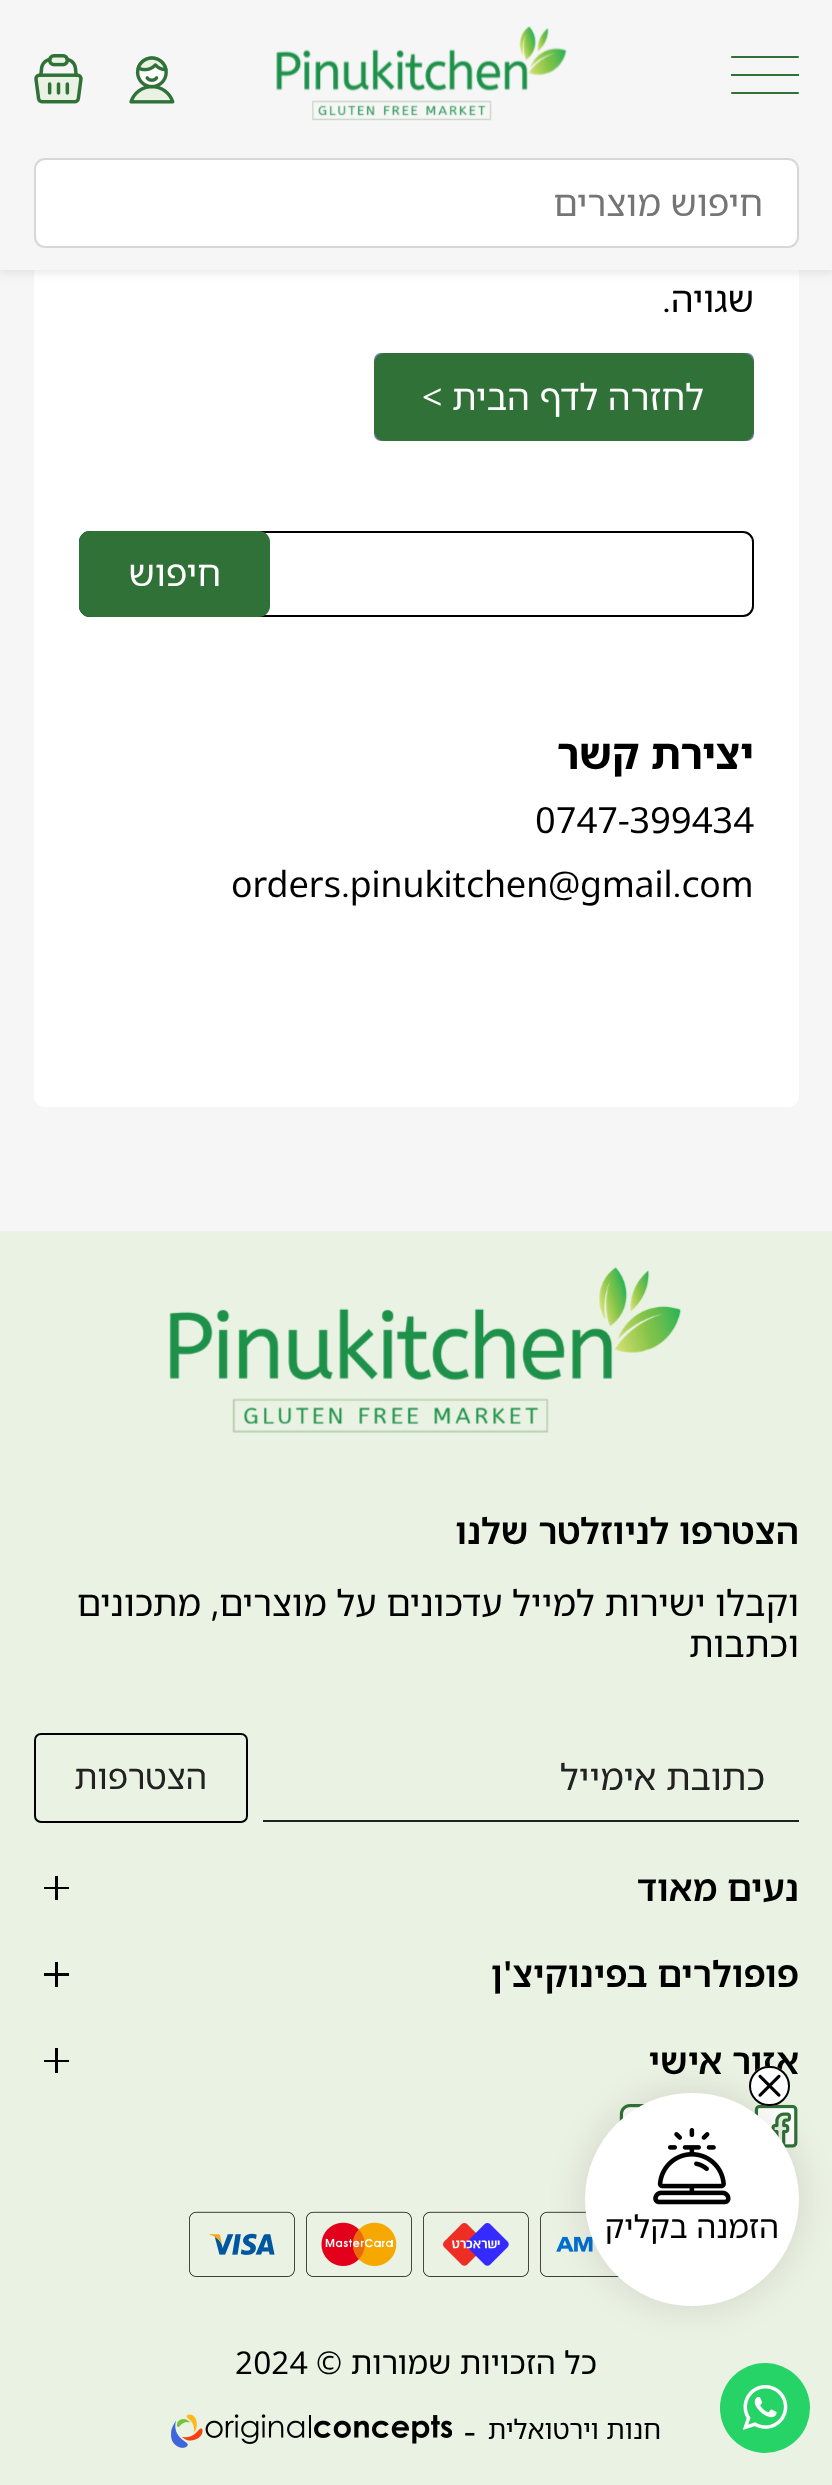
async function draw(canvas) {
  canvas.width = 832
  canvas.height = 2485
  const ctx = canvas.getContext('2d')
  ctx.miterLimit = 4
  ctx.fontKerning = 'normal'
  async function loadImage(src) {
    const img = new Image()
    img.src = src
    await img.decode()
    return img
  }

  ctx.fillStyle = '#f6f6f7'
  ctx.fillRect(0, 0, 832, 2485)
  ctx.fillStyle = '#fff'
  ctx.beginPath()
  ctx.roundRect(34, -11, 765, 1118, 11)
  ctx.fill()
  ctx.fillStyle = '#98989840'
  ctx.filter = 'blur(5.5px)'
  ctx.beginPath()
  ctx.rect(-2, -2, 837, 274)
  ctx.fill()
  ctx.filter = 'none'
  ctx.fillStyle = '#f6f6f7'
  ctx.fillRect(0, 0, 832, 270)
  ctx.fillStyle = '#2f7137'
  ctx.beginPath()
  ctx.roundRect(731, 56, 68, 2, 1)
  ctx.fill()
  ctx.fillRect(731, 74, 68, 2)
  ctx.beginPath()
  ctx.roundRect(731, 92, 68, 2, 1)
  ctx.fill()
  ctx.drawImage(await loadImage('image0.png'), 276, 26, 291, 95)
  ctx.drawImage(await loadImage('image1.png'), 129, 56, 46, 48)
  ctx.drawImage(await loadImage('image2.png'), 34, 54, 49, 50)
  ctx.fillStyle = '#fff'
  ctx.beginPath()
  ctx.roundRect(35, 159, 763, 88, 10)
  ctx.fill()
  ctx.strokeStyle = '#d7d7d7'
  ctx.lineWidth = 2
  ctx.stroke()
  ctx.direction = 'rtl'
  ctx.font = '36px Noto Sans Hebrew'
  ctx.fillStyle = '#757575'
  ctx.fillText('חיפוש מוצרים', 763, 216)
  ctx.fillStyle = '#000'
  ctx.fillText('שגויה.', 754, 312)
  ctx.fillStyle = '#6b7fa0'
  ctx.beginPath()
  ctx.roundRect(374, 353, 380, 88, 7)
  ctx.fill()
  ctx.fillStyle = '#2f7137'
  ctx.beginPath()
  ctx.roundRect(374, 353, 380, 88, 11)
  ctx.fill()
  ctx.fillStyle = '#fff'
  ctx.fillText('לחזרה לדף הבית >', 704, 410)
  ctx.beginPath()
  ctx.roundRect(80, 532, 673, 84, 10)
  ctx.strokeStyle = '#000'
  ctx.stroke()
  ctx.fillStyle = '#2f7137'
  ctx.beginPath()
  ctx.roundRect(79, 531, 191, 86, 11)
  ctx.fill()
  ctx.fillStyle = '#fff'
  ctx.fillText('חיפוש', 221, 586)
  ctx.font = 'bold 42px Noto Sans Hebrew'
  ctx.fillStyle = '#000'
  ctx.fillText('יצירת קשר', 754, 769)
  ctx.direction = 'ltr'
  ctx.font = '36px Noto Sans Hebrew'
  ctx.fillText('0747-399434', 535, 833)
  ctx.fillText('orders.pinukitchen@gmail.com', 231, 897)
  ctx.fillStyle = '#eaf2e3'
  ctx.fillRect(0, 1231, 832, 1254)
  ctx.drawImage(await loadImage('image3.png'), 169, 1267, 513, 166)
  ctx.direction = 'rtl'
  ctx.font = '600 36px Noto Sans Hebrew'
  ctx.fillStyle = '#000'
  ctx.fillText('הצטרפו לניוזלטר שלנו', 799, 1544)
  ctx.font = '36px Noto Sans Hebrew'
  ctx.fillText('וקבלו ישירות למייל עדכונים על מוצרים, מתכונים', 799, 1616)
  ctx.fillText('וכתבות', 799, 1657)
  ctx.fillStyle = '#212121'
  ctx.fillRect(263, 1820, 536, 2)
  ctx.fillText('כתובת אימייל', 765, 1790)
  ctx.beginPath()
  ctx.roundRect(35, 1734, 212, 88, 6)
  ctx.stroke()
  ctx.font = '34px Noto Sans Hebrew'
  ctx.fillText('הצטרפות', 207, 1789)
  ctx.font = '600 36px Noto Sans Hebrew'
  ctx.fillStyle = '#000'
  ctx.fillText('נעים מאוד', 799, 1901)
  ctx.fillRect(55, 1876, 3, 24)
  ctx.fillRect(44, 1887, 25, 2)
  ctx.fillText('פופולרים בפינוקיצ\'ן', 799, 1987)
  ctx.fillRect(55, 1962, 3, 25)
  ctx.fillRect(44, 1973, 25, 3)
  ctx.fillText('אזור אישי', 799, 2074)
  ctx.fillRect(55, 2048, 3, 25)
  ctx.fillRect(44, 2060, 25, 2)
  ctx.drawImage(await loadImage('image4.png'), 754, 2104, 44, 44)
  ctx.drawImage(await loadImage('image5.png'), 619, 2104, 26, 18)
  ctx.drawImage(await loadImage('image6.png'), 540, 2211, 79, 66)
  ctx.drawImage(await loadImage('image7.png'), 423, 2211, 106, 66)
  ctx.drawImage(await loadImage('image8.png'), 306, 2211, 106, 66)
  ctx.drawImage(await loadImage('image9.png'), 189, 2211, 106, 66)
  ctx.font = '31.5px Noto Sans Hebrew'
  ctx.fillText('כל הזכויות שמורות ©', 597, 2374)
  ctx.direction = 'ltr'
  ctx.fillText('2024', 235, 2374)
  ctx.direction = 'rtl'
  ctx.font = '27px Noto Sans Hebrew'
  ctx.fillText('חנות וירטואלית', 661, 2439)
  ctx.direction = 'ltr'
  ctx.font = '36px Noto Sans Hebrew'
  ctx.fillText('-', 464, 2444)
  ctx.drawImage(await loadImage('image10.png'), 171, 2414, 281, 34)
  ctx.fillStyle = '#2610021f'
  ctx.filter = 'blur(18px)'
  ctx.beginPath()
  ctx.roundRect(585, 2093, 214, 213, 106.5)
  ctx.fill()
  ctx.filter = 'none'
  ctx.fillStyle = '#fff'
  ctx.beginPath()
  ctx.roundRect(585, 2093, 214, 213, 106.5)
  ctx.fill()
  ctx.beginPath()
  ctx.roundRect(749, 2066, 41, 40, 20)
  ctx.fill()
  ctx.drawImage(await loadImage('image11.png'), 758, 2074, 23, 23)
  ctx.beginPath()
  ctx.roundRect(750, 2067, 39, 38, 19)
  ctx.stroke()
  ctx.drawImage(await loadImage('image12.png'), 653, 2128, 78, 77)
  ctx.direction = 'rtl'
  ctx.font = '31.5px Noto Sans Hebrew'
  ctx.fillStyle = '#000'
  ctx.fillText('הזמנה בקליק', 779, 2238)
  ctx.fillStyle = '#25d366'
  ctx.beginPath()
  ctx.arc(765, 2408, 45, 0, 2 * Math.PI)
  ctx.fill()
  ctx.drawImage(await loadImage('image13.png'), 743, 2385, 45, 45)
}

draw(document.querySelector('canvas'))
